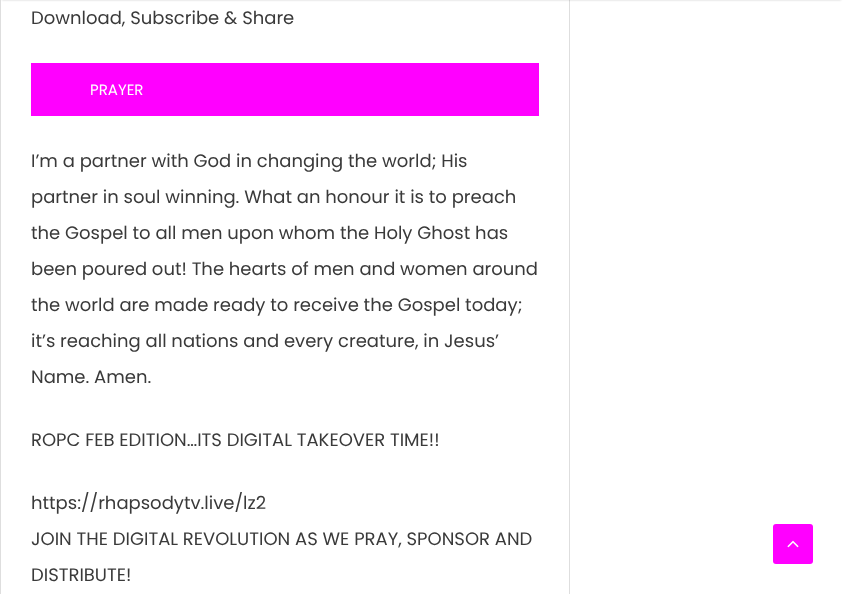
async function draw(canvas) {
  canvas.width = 843
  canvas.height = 594
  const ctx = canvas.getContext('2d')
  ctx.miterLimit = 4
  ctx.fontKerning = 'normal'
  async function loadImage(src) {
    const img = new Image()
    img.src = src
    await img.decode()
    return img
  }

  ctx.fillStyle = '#fff'
  ctx.fillRect(0, 0, 843, 594)
  ctx.strokeStyle = '#dedede'
  ctx.strokeRect(0.5, -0.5, 569, 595)
  ctx.fillStyle = '#00000033'
  ctx.filter = 'blur(1px)'
  ctx.beginPath()
  ctx.rect(2, -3, 839, 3)
  ctx.fill()
  ctx.filter = 'none'
  ctx.font = '18px Poppins'
  ctx.fillStyle = '#3a3a3a'
  ctx.fillText('Download, Subscribe & Share', 31, 24)
  ctx.fillStyle = '#f0f'
  ctx.fillRect(31, 63, 508, 53)
  ctx.font = '15px Poppins'
  ctx.fillStyle = '#fff'
  ctx.fillText('PRAYER', 90, 95)
  ctx.font = '18px Poppins'
  ctx.fillStyle = '#3a3a3a'
  ctx.fillText('I’m a partner with God in changing the world; His', 31, 167)
  ctx.fillText('partner in soul winning. What an honour it is to preach', 31, 203)
  ctx.fillText('the Gospel to all men upon whom the Holy Ghost has', 31, 239)
  ctx.fillText('been poured out! The hearts of men and women around', 31, 275)
  ctx.fillText('the world are made ready to receive the Gospel today;', 31, 311)
  ctx.fillText('it’s reaching all nations and every creature, in Jesus’', 31, 347)
  ctx.fillText('Name. Amen.', 31, 383)
  ctx.fillText('ROPC FEB EDITION…ITS DIGITAL TAKEOVER TIME!!', 31, 446)
  ctx.fillText('https://rhapsodytv.live/lz2', 31, 509)
  ctx.fillText('JOIN THE DIGITAL REVOLUTION AS WE PRAY, SPONSOR AND', 31, 545)
  ctx.fillText('DISTRIBUTE!', 31, 581)
  ctx.fillStyle = '#f0f'
  ctx.beginPath()
  ctx.roundRect(773, 524, 40, 40, 3)
  ctx.fill()
  ctx.drawImage(await loadImage('image0.png'), 787, 540, 12, 8)
}

draw(document.querySelector('canvas'))
